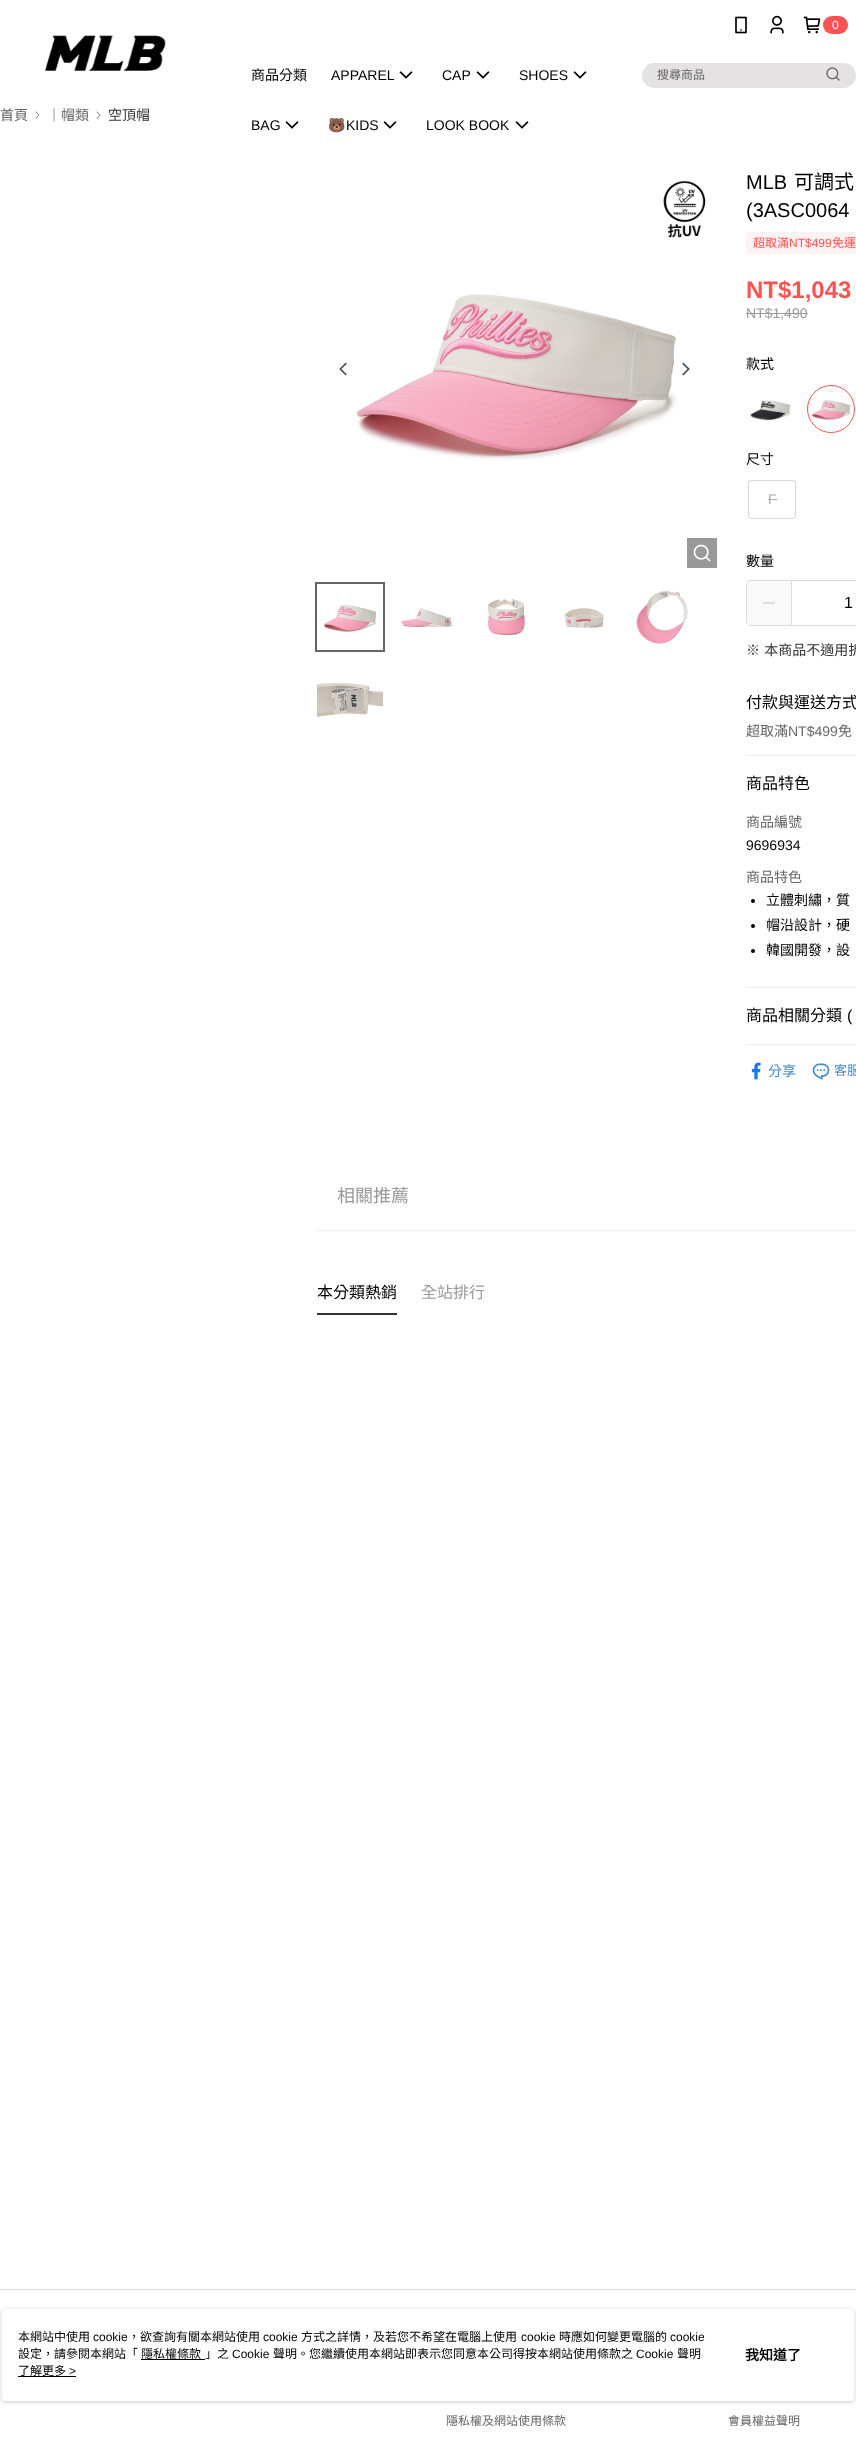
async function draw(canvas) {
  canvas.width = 856
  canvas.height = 2447
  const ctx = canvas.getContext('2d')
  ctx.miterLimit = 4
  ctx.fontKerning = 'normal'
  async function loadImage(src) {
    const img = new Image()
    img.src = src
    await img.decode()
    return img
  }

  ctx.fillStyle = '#fff'
  ctx.fillRect(0, 0, 856, 2447)
  ctx.drawImage(await loadImage('image0.png'), 45, 35, 121, 36)
  ctx.drawImage(await loadImage('image1.png'), 735, 16, 12, 18)
  ctx.drawImage(await loadImage('image2.png'), 770, 15, 14, 19)
  ctx.drawImage(await loadImage('image3.png'), 803, 16, 18, 18)
  ctx.fillStyle = '#ff5353'
  ctx.beginPath()
  ctx.roundRect(823, 16, 25, 18, 9)
  ctx.fill()
  ctx.font = '12px Liberation Sans'
  ctx.fillStyle = '#fff'
  ctx.fillText('0', 832, 29)
  ctx.font = '14px Noto Sans CJK TC'
  ctx.fillStyle = '#000'
  ctx.fillText('商品分類', 251, 80)
  ctx.font = '14px Liberation Sans'
  ctx.fillText('APPAREL', 331, 80)
  ctx.drawImage(await loadImage('image4.png'), 399, 71, 14, 8)
  ctx.fillText('CAP', 442, 80)
  ctx.drawImage(await loadImage('image4.png'), 476, 71, 14, 8)
  ctx.fillText('SHOES', 519, 80)
  ctx.drawImage(await loadImage('image4.png'), 573, 71, 14, 8)
  ctx.fillText('BAG', 251, 130)
  ctx.drawImage(await loadImage('image4.png'), 285, 121, 14, 8)
  ctx.font = '14px Noto Color Emoji'
  ctx.fillText('🐻', 328, 130)
  ctx.font = '14px Liberation Sans'
  ctx.fillText('KIDS', 346, 130)
  ctx.drawImage(await loadImage('image4.png'), 383, 121, 14, 8)
  ctx.fillText('LOOK BOOK', 426, 130)
  ctx.drawImage(await loadImage('image4.png'), 515, 121, 14, 8)
  ctx.fillStyle = '#e4e2e2'
  ctx.beginPath()
  ctx.roundRect(642, 63, 214, 25, 12.5)
  ctx.fill()
  ctx.font = '12px Noto Sans CJK TC'
  ctx.fillStyle = '#666'
  ctx.fillText('搜尋商品', 657, 79)
  ctx.drawImage(await loadImage('image5.png'), 826, 67, 14, 14)
  ctx.font = '14px Noto Sans CJK TC'
  ctx.fillText('首頁', 0, 120)
  ctx.drawImage(await loadImage('image6.png'), 35, 111, 5, 8)
  ctx.fillText('｜帽類', 47, 120)
  ctx.drawImage(await loadImage('image6.png'), 96, 111, 5, 8)
  ctx.fillStyle = '#333'
  ctx.fillText('空頂帽', 108, 120)
  ctx.drawImage(await loadImage('image7.png'), 339, 362, 8, 14)
  ctx.drawImage(await loadImage('image8.png'), 663, 180, 43, 58)
  ctx.drawImage(await loadImage('image9.png'), 356, 294, 321, 167)
  ctx.fillStyle = '#999'
  ctx.fillRect(687, 538, 30, 30)
  ctx.drawImage(await loadImage('image10.png'), 693, 544, 18, 18)
  ctx.drawImage(await loadImage('image11.png'), 682, 362, 8, 14)
  ctx.drawImage(await loadImage('image12.png'), 323, 604, 53, 28)
  ctx.strokeStyle = '#666'
  ctx.lineWidth = 2
  ctx.strokeRect(316, 583, 68, 68)
  ctx.drawImage(await loadImage('image13.png'), 401, 608, 53, 19)
  ctx.drawImage(await loadImage('image14.png'), 488, 599, 38, 37)
  ctx.drawImage(await loadImage('image15.png'), 564, 608, 40, 21)
  ctx.drawImage(await loadImage('image16.png'), 636, 590, 52, 54)
  ctx.drawImage(await loadImage('image17.png'), 317, 682, 66, 35)
  ctx.font = '20px Liberation Sans'
  ctx.fillStyle = '#000'
  ctx.fillText('MLB', 746, 189)
  ctx.wordSpacing = '1px'
  ctx.font = '20px Noto Sans CJK TC'
  ctx.fillText('可調式', 794, 189)
  ctx.wordSpacing = '0px'
  ctx.font = '20px Liberation Sans'
  ctx.fillText('(3ASC0064', 746, 217)
  ctx.fillStyle = '#fff2f2'
  ctx.beginPath()
  ctx.roundRect(746.5, 232.5, 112, 21, 1.5)
  ctx.fill()
  ctx.strokeStyle = '#fff2f2'
  ctx.lineWidth = 1
  ctx.stroke()
  ctx.font = '12px Noto Sans CJK TC'
  ctx.fillStyle = '#ff5353'
  ctx.fillText('超取滿', 753, 247)
  ctx.font = '12px Liberation Sans'
  ctx.fillText('NT$499', 789, 247)
  ctx.font = '12px Noto Sans CJK TC'
  ctx.fillText('免運', 832, 247)
  ctx.font = 'bold 24px Liberation Sans'
  ctx.fillText('NT$1,043', 746, 298)
  ctx.font = '14px Liberation Sans'
  ctx.fillStyle = '#999'
  ctx.fillText('NT$1,490', 746, 318)
  ctx.fillRect(746, 313, 62, 1)
  ctx.font = '14px Noto Sans CJK TC'
  ctx.fillStyle = '#000'
  ctx.fillText('款式', 746, 369)
  ctx.drawImage(await loadImage('image18.png'), 746, 385, 49, 48)
  ctx.drawImage(await loadImage('image19.png'), 807, 385, 48, 48)
  ctx.beginPath()
  ctx.arc(831, 409, 23.5, 0, 2 * Math.PI)
  ctx.strokeStyle = '#ff5353'
  ctx.stroke()
  ctx.fillText('尺寸', 746, 464)
  ctx.beginPath()
  ctx.roundRect(748.5, 480.5, 47, 38, 2.5)
  ctx.strokeStyle = '#d8d8d8'
  ctx.stroke()
  ctx.font = '14px Liberation Sans'
  ctx.fillStyle = '#aaa'
  ctx.fillText('F', 768, 504)
  ctx.fillRect(768, 499, 9, 1)
  ctx.font = '14px Noto Sans CJK TC'
  ctx.fillStyle = '#000'
  ctx.fillText('數量', 746, 566)
  ctx.beginPath()
  ctx.roundRect(746.5, 580.5, 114, 45, 3.5)
  ctx.strokeStyle = '#ddd'
  ctx.stroke()
  ctx.fillStyle = '#f1f1f166'
  ctx.fillRect(747, 581, 44, 44)
  ctx.fillStyle = '#ddd'
  ctx.fillRect(763, 602, 12, 2)
  ctx.fillRect(791, 581, 1, 44)
  ctx.font = '16px Liberation Sans'
  ctx.fillStyle = '#000'
  ctx.fillText('1', 844, 608)
  ctx.wordSpacing = '1px'
  ctx.font = '14px Noto Sans CJK TC'
  ctx.fillStyle = '#333'
  ctx.fillText('※ 本商品不適用折', 746, 655)
  ctx.fillStyle = '#eceff1'
  ctx.fillRect(746, 755, 110, 1)
  ctx.wordSpacing = '0px'
  ctx.font = '16px Noto Sans CJK TC'
  ctx.fillStyle = '#000'
  ctx.fillText('付款與運送方式', 746, 708)
  ctx.font = '14px Noto Sans CJK TC'
  ctx.fillStyle = '#666'
  ctx.fillText('超取滿', 746, 736)
  ctx.font = '14px Liberation Sans'
  ctx.fillText('NT$499', 788, 736)
  ctx.font = '14px Noto Sans CJK TC'
  ctx.fillText('免', 838, 736)
  ctx.fillStyle = '#eceff1'
  ctx.fillRect(746, 987, 110, 1)
  ctx.font = '16px Noto Sans CJK TC'
  ctx.fillStyle = '#000'
  ctx.fillText('商品特色', 746, 789)
  ctx.font = '14px Noto Sans CJK TC'
  ctx.fillStyle = '#666'
  ctx.fillText('商品編號', 746, 827)
  ctx.font = '14px Liberation Sans'
  ctx.fillStyle = '#000'
  ctx.fillText('9696934', 746, 850)
  ctx.font = '14px Noto Sans CJK TC'
  ctx.fillStyle = '#666'
  ctx.fillText('商品特色', 746, 882)
  ctx.fillStyle = '#000'
  ctx.beginPath()
  ctx.arc(753, 901, 2, 0, 2 * Math.PI)
  ctx.fill()
  ctx.fillText('立體刺繡，質', 766, 905)
  ctx.beginPath()
  ctx.arc(753, 926, 2, 0, 2 * Math.PI)
  ctx.fill()
  ctx.fillText('帽沿設計，硬', 766, 930)
  ctx.beginPath()
  ctx.arc(753, 951, 2, 0, 2 * Math.PI)
  ctx.fill()
  ctx.fillText('韓國開發，設', 766, 955)
  ctx.fillStyle = '#eceff1'
  ctx.fillRect(746, 1044, 110, 1)
  ctx.font = '16px Noto Sans CJK TC'
  ctx.fillStyle = '#000'
  ctx.fillText('商品相關分類', 746, 1021)
  ctx.font = '16px Liberation Sans'
  ctx.fillText('(', 847, 1021)
  ctx.drawImage(await loadImage('image20.png'), 751, 1062, 10, 18)
  ctx.font = '14px Noto Sans CJK TC'
  ctx.fillStyle = '#428bca'
  ctx.fillText('分享', 768, 1076)
  ctx.drawImage(await loadImage('image21.png'), 812, 1063, 18, 17)
  ctx.font = '13px Noto Sans CJK TC'
  ctx.fillText('客服', 834, 1075)
  ctx.fillStyle = '#ececec'
  ctx.fillRect(317, 1230, 539, 1)
  ctx.font = '18px Noto Sans CJK TC'
  ctx.fillStyle = '#999'
  ctx.fillText('相關推薦', 337, 1202)
  ctx.fillStyle = '#333'
  ctx.fillRect(317, 1313, 80, 2)
  ctx.font = '16px Noto Sans CJK TC'
  ctx.fillStyle = '#000'
  ctx.fillText('本分類熱銷', 317, 1298)
  ctx.fillStyle = '#999'
  ctx.fillText('全站排行', 421, 1298)
  ctx.fillStyle = '#dadada'
  ctx.fillRect(0, 2289, 856, 1)
  ctx.font = '12px Noto Sans CJK TC'
  ctx.fillStyle = '#666'
  ctx.fillText('隱私權及網站使用條款', 446, 2425)
  ctx.fillText('會員權益聲明', 728, 2425)
  ctx.fillStyle = '#97979780'
  ctx.filter = 'blur(2px)'
  ctx.beginPath()
  ctx.roundRect(2, 2310, 852, 92, 4)
  ctx.fill()
  ctx.filter = 'none'
  ctx.fillStyle = '#fff'
  ctx.beginPath()
  ctx.roundRect(2, 2309, 852, 92, 4)
  ctx.fill()
  ctx.fillStyle = '#000'
  ctx.fillText('本網站中使用', 18, 2341)
  ctx.font = '12px Liberation Sans'
  ctx.fillText('cookie', 93, 2341)
  ctx.font = '12px Noto Sans CJK TC'
  ctx.fillText('，欲查詢有關本網站使用', 128, 2341)
  ctx.font = '12px Liberation Sans'
  ctx.fillText('cookie', 263, 2341)
  ctx.font = '12px Noto Sans CJK TC'
  ctx.fillText('方式之詳情，及若您不希望在電腦上使用', 301, 2341)
  ctx.font = '12px Liberation Sans'
  ctx.fillText('cookie', 521, 2341)
  ctx.font = '12px Noto Sans CJK TC'
  ctx.fillText('時應如何變更電腦的', 559, 2341)
  ctx.font = '12px Liberation Sans'
  ctx.fillText('cookie', 670, 2341)
  ctx.font = '12px Noto Sans CJK TC'
  ctx.fillText('設定，請參閱本網站「', 18, 2358)
  ctx.fillText('隱私權條款', 141, 2358)
  ctx.fillRect(141, 2359, 64, 1)
  ctx.fillText('」之', 205, 2358)
  ctx.font = '12px Liberation Sans'
  ctx.fillText('Cookie', 232, 2358)
  ctx.font = '12px Noto Sans CJK TC'
  ctx.fillText('聲明。您繼續使用本網站即表示您同意本公司得按本網站使用條款之', 273, 2358)
  ctx.font = '12px Liberation Sans'
  ctx.fillText('Cookie', 636, 2358)
  ctx.font = '12px Noto Sans CJK TC'
  ctx.fillText('聲明', 677, 2358)
  ctx.fillText('了解更多', 18, 2375)
  ctx.font = '12px Liberation Sans'
  ctx.fillText('>', 69, 2375)
  ctx.fillRect(18, 2376, 58, 1)
  ctx.font = 'bold 14px Noto Sans CJK TC'
  ctx.fillText('我知道了', 745, 2360)
}

draw(document.querySelector('canvas'))
